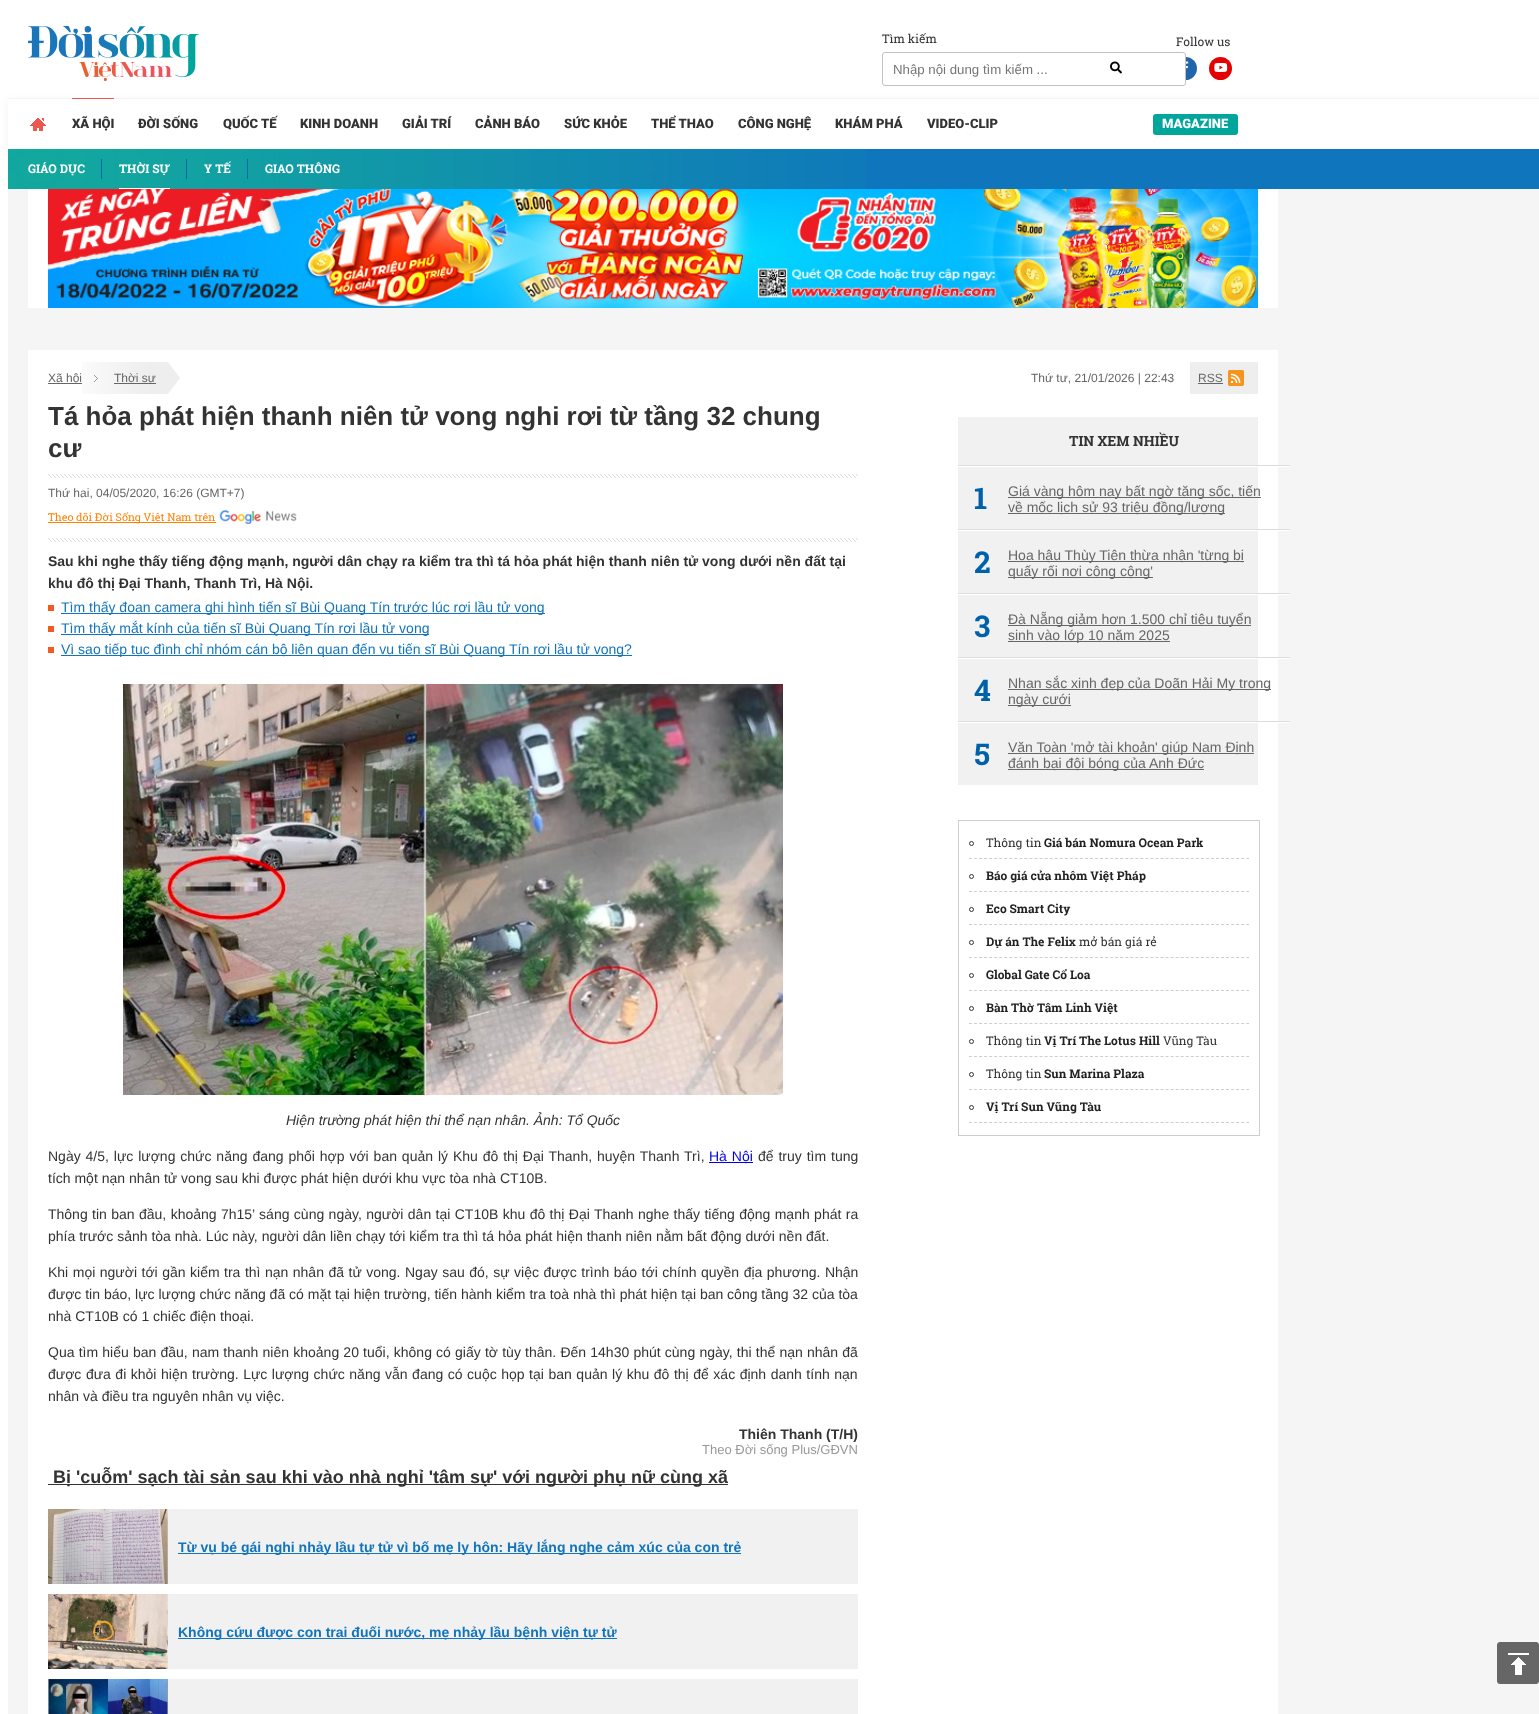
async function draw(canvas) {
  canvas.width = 1539
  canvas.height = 1714
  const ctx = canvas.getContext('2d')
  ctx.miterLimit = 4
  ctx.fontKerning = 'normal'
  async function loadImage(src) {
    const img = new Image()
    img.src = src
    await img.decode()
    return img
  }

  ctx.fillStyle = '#fff'
  ctx.fillRect(0, 0, 1539, 1714)
  ctx.fillStyle = '#f5f5f5'
  ctx.fillRect(8, 189, 1531, 1525)
  ctx.drawImage(await loadImage('image0.png'), 28, 26, 171, 55)
  ctx.font = '12px Roboto Slab'
  ctx.fillStyle = '#333'
  ctx.fillText('Tìm kiếm', 882, 43)
  ctx.fillStyle = '#2166ad'
  ctx.beginPath()
  ctx.arc(1185.5, 68.5, 11.5, 0, 2 * Math.PI)
  ctx.fill()
  ctx.fillStyle = '#fff'
  ctx.beginPath()
  ctx.roundRect(882.5, 52.5, 303, 33, 2.5)
  ctx.fill()
  ctx.strokeStyle = '#c1c1c1'
  ctx.stroke()
  ctx.font = '13.25px Liberation Sans'
  ctx.fillStyle = '#757575'
  ctx.fillText('Nhập nội dung tìm kiếm ...', 893, 74)
  ctx.drawImage(await loadImage('image1.png'), 1110, 61, 12, 13)
  ctx.font = '12px Roboto Slab'
  ctx.fillStyle = '#333'
  ctx.fillText('Follow us', 1176, 46)
  ctx.drawImage(await loadImage('image2.png'), 1186, 61, 3, 8)
  ctx.fillStyle = '#e30101'
  ctx.beginPath()
  ctx.arc(1220.5, 68.5, 11.5, 0, 2 * Math.PI)
  ctx.fill()
  ctx.drawImage(await loadImage('image3.png'), 1214, 63, 14, 9)
  ctx.fillStyle = '#0000000d'
  ctx.filter = 'blur(5px)'
  ctx.beginPath()
  ctx.rect(8, 101, 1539, 52)
  ctx.fill()
  ctx.filter = 'none'
  ctx.fillStyle = '#fff'
  ctx.fillRect(8, 99, 1531, 50)
  ctx.fillStyle = '#f4f4f4'
  ctx.fillRect(8, 98, 1531, 1)
  ctx.font = '900 13px Roboto'
  ctx.fillStyle = '#333'
  ctx.fillText('ĐỜI SỐNG', 138, 128)
  ctx.fillText('QUỐC TẾ', 223, 128)
  ctx.fillText('GIẢI TRÍ', 402, 128)
  ctx.fillText('CẢNH BÁO', 475, 128)
  ctx.fillText('SỨC KHỎE', 564, 128)
  ctx.fillText('THỂ THAO', 651, 128)
  ctx.fillStyle = '#eb584f'
  ctx.fillRect(72, 98, 42, 1)
  ctx.fillStyle = '#333'
  ctx.fillText('XÃ HỘI', 72, 128)
  ctx.fillStyle = '#0f75bc'
  ctx.fillRect(866, 149, 673, 40)
  ctx.drawImage(await loadImage('image4.png'), 8, 149, 858, 40)
  ctx.fillStyle = '#0d69aa'
  ctx.fillRect(101, 159, 1, 20)
  ctx.font = 'bold 12px Roboto Slab'
  ctx.fillStyle = '#fff'
  ctx.fillText('GIÁO DỤC', 28, 173)
  ctx.fillStyle = '#0d69aa'
  ctx.fillRect(186, 159, 1, 20)
  ctx.fillStyle = '#fff'
  ctx.fillRect(119, 188, 51, 1)
  ctx.fillText('THỜI SỰ', 119, 173)
  ctx.fillStyle = '#0d69aa'
  ctx.fillRect(247, 159, 1, 20)
  ctx.fillStyle = '#fff'
  ctx.fillText('Y TẾ', 204, 173)
  ctx.fillText('GIAO THÔNG', 265, 173)
  ctx.font = '900 13px Roboto'
  ctx.fillStyle = '#333'
  ctx.fillText('CÔNG NGHỆ', 738, 128)
  ctx.fillText('KHÁM PHÁ', 835, 128)
  ctx.drawImage(await loadImage('image5.png'), 30, 118, 16, 13)
  ctx.fillText('KINH DOANH', 300, 128)
  ctx.fillText('VIDEO-CLIP', 927, 128)
  ctx.fillStyle = '#00a59c'
  ctx.beginPath()
  ctx.roundRect(1153, 114, 85, 21, 3)
  ctx.fill()
  ctx.fillStyle = '#fff'
  ctx.fillText('MAGAZINE', 1162, 128)
  ctx.fillRect(28, 189, 1250, 119)
  ctx.drawImage(await loadImage('image6.png'), 48, 189, 1210, 119)
  ctx.fillRect(28, 350, 1250, 1364)
  ctx.drawImage(await loadImage('image7.png'), 82, 362, 98, 32)
  ctx.drawImage(await loadImage('image8.png'), 94, 375, 4, 7)
  ctx.fillStyle = '#666'
  ctx.fillRect(48, 383, 34, 1)
  ctx.font = '12px Liberation Sans'
  ctx.fillText('Xã hội', 48, 382)
  ctx.fillRect(114, 383, 42, 1)
  ctx.fillText('Thời sự', 114, 382)
  ctx.fillText('Thứ tư, 21/01/2026 | 22:43', 1031, 382)
  ctx.fillStyle = '#eee'
  ctx.beginPath()
  ctx.roundRect(1190, 362, 68, 32, 1)
  ctx.fill()
  ctx.drawImage(await loadImage('image9.png'), 1228, 370, 16, 16)
  ctx.fillStyle = '#666'
  ctx.fillText('RSS', 1198, 382)
  ctx.fillRect(1198, 383, 25, 1)
  ctx.font = 'bold 26px Liberation Sans'
  ctx.fillStyle = '#333'
  ctx.fillText('Tá hỏa phát hiện thanh niên tử vong nghi rơi từ tầng 32 chung', 48, 425)
  ctx.fillText('cư', 48, 457)
  ctx.drawImage(await loadImage('image10.png'), 48, 474, 810, 4)
  ctx.font = '12px Liberation Sans'
  ctx.fillStyle = '#666'
  ctx.fillText('Thứ hai, 04/05/2020, 16:26 (GMT+7)', 48, 497)
  ctx.fillStyle = '#ff8100'
  ctx.fillRect(48, 522, 168, 1)
  ctx.font = '10.75px Roboto Slab'
  ctx.fillText('Theo dõi Đời Sống Việt Nam trên', 48, 521)
  ctx.drawImage(await loadImage('image11.png'), 219, 510, 78, 14)
  ctx.drawImage(await loadImage('image10.png'), 48, 538, 810, 4)
  ctx.font = 'bold 14px Liberation Sans'
  ctx.fillStyle = '#333'
  ctx.fillText('Sau khi nghe thấy tiếng động mạnh, người dân chạy ra kiểm tra thì tá hỏa phát hiện thanh niên tử vong dưới nền đất tại', 48, 566)
  ctx.fillText('khu đô thị Đại Thanh, Thanh Trì, Hà Nội.', 48, 588)
  ctx.fillStyle = '#f15a22'
  ctx.fillRect(48, 605, 6, 6)
  ctx.fillStyle = '#1275bc'
  ctx.fillRect(61, 613, 484, 1)
  ctx.font = '14px Liberation Sans'
  ctx.fillText('Tìm thấy đoạn camera ghi hình tiến sĩ Bùi Quang Tín trước lúc rơi lầu tử vong', 61, 612)
  ctx.fillStyle = '#f15a22'
  ctx.fillRect(48, 626, 6, 6)
  ctx.fillStyle = '#1275bc'
  ctx.fillRect(61, 634, 368, 1)
  ctx.fillText('Tìm thấy mắt kính của tiến sĩ Bùi Quang Tín rơi lầu tử vong', 61, 633)
  ctx.fillStyle = '#f15a22'
  ctx.fillRect(48, 647, 6, 6)
  ctx.fillStyle = '#1275bc'
  ctx.fillRect(61, 655, 571, 1)
  ctx.fillText('Vì sao tiếp tục đình chỉ nhóm cán bộ liên quan đến vụ tiến sĩ Bùi Quang Tín rơi lầu tử vong?', 61, 654)
  ctx.drawImage(await loadImage('image12.png'), 123, 684, 660, 411)
  ctx.font = 'italic 14px Liberation Sans'
  ctx.fillStyle = '#333'
  ctx.fillText('Hiện trường phát hiện thi thể nạn nhân. Ảnh: Tổ Quốc', 286, 1125)
  ctx.wordSpacing = '1px'
  ctx.font = '14px Liberation Sans'
  ctx.fillText('Ngày 4/5, lực lượng chức năng đang phối hợp với ban quản lý Khu đô thị Đại Thanh, huyện Thanh Trì,', 48, 1161)
  ctx.fillStyle = '#00e'
  ctx.fillRect(709, 1162, 44, 1)
  ctx.fillText('Hà Nội', 709, 1161)
  ctx.fillStyle = '#333'
  ctx.fillText('để truy tìm tung', 758, 1161)
  ctx.wordSpacing = '0px'
  ctx.fillText('tích một nạn nhân tử vong sau khi được phát hiện dưới khu vực tòa nhà CT10B.', 48, 1183)
  ctx.wordSpacing = '0.5px'
  ctx.fillText('Thông tin ban đầu, khoảng 7h15’ sáng cùng ngày, người dân tại CT10B khu đô thị Đại Thanh nghe thấy tiếng động mạnh phát ra', 48, 1219)
  ctx.wordSpacing = '0px'
  ctx.fillText('phía trước sảnh tòa nhà. Lúc này, người dân liền chạy tới kiểm tra thì tá hỏa phát hiện thanh niên nằm bất động dưới nền đất.', 48, 1241)
  ctx.wordSpacing = '0.6px'
  ctx.fillText('Khi mọi người tới gần kiểm tra thì nạn nhân đã tử vong. Ngay sau đó, sự việc được trình báo tới chính quyền địa phương. Nhận', 48, 1277)
  ctx.wordSpacing = '0px'
  ctx.fillText('được tin báo, lực lượng chức năng đã có mặt tại hiện trường, tiến hành kiểm tra toà nhà thì phát hiện tại ban công tầng 32 của tòa', 48, 1299)
  ctx.fillText('nhà CT10B có 1 chiếc điện thoại.', 48, 1321)
  ctx.wordSpacing = '0.3px'
  ctx.fillText('Qua tìm hiểu ban đầu, nam thanh niên khoảng 20 tuổi, không có giấy tờ tùy thân. Đến 14h30 phút cùng ngày, thi thể nạn nhân đã', 48, 1357)
  ctx.wordSpacing = '0.65px'
  ctx.fillText('được đưa đi khỏi hiện trường. Lực lượng chức năng vẫn đang có cuộc họp tại ban quản lý khu đô thị để xác định danh tính nạn', 48, 1379)
  ctx.wordSpacing = '0px'
  ctx.fillText('nhân và điều tra nguyên nhân vụ việc.', 48, 1401)
  ctx.font = 'bold 14px Liberation Sans'
  ctx.fillText('Thiên Thanh (T/H)', 739, 1439)
  ctx.font = '13px Liberation Sans'
  ctx.fillStyle = '#999'
  ctx.fillText('Theo Đời sống Plus/GĐVN', 702, 1454)
  ctx.fillStyle = '#333'
  ctx.fillRect(48, 1484, 680, 1)
  ctx.font = 'bold 18px Liberation Sans'
  ctx.fillText('Bị \'cuỗm\' sạch tài sản sau khi vào nhà nghỉ \'tâm sự\' với người phụ nữ cùng xã', 53, 1483)
  ctx.fillStyle = '#f1f1f1'
  ctx.fillRect(168, 1509, 690, 75)
  ctx.drawImage(await loadImage('image13.png'), 48, 1509, 120, 75)
  ctx.fillStyle = '#1575ba'
  ctx.fillRect(178, 1553, 563, 1)
  ctx.font = 'bold 14px Liberation Sans'
  ctx.fillStyle = '#1275bc'
  ctx.fillText('Từ vụ bé gái nghi nhảy lầu tự tử vì bố mẹ ly hôn: Hãy lắng nghe cảm xúc của con trẻ', 178, 1552)
  ctx.fillStyle = '#f1f1f1'
  ctx.fillRect(168, 1594, 690, 75)
  ctx.drawImage(await loadImage('image14.png'), 48, 1594, 120, 75)
  ctx.fillStyle = '#1575ba'
  ctx.fillRect(178, 1638, 439, 1)
  ctx.fillStyle = '#1275bc'
  ctx.fillText('Không cứu được con trai đuối nước, mẹ nhảy lầu bệnh viện tự tử', 178, 1637)
  ctx.fillStyle = '#f1f1f1'
  ctx.fillRect(168, 1679, 690, 35)
  ctx.drawImage(await loadImage('image15.png'), 48, 1679, 120, 35)
  ctx.fillRect(958, 417, 300, 368)
  ctx.fillStyle = '#ddd'
  ctx.fillRect(958, 465, 332, 1)
  ctx.font = 'bold 14px Roboto Slab'
  ctx.fillStyle = '#333'
  ctx.fillText('TIN XEM NHIỀU', 1069, 446)
  ctx.fillStyle = '#fff'
  ctx.fillRect(958, 466, 332, 1)
  ctx.fillStyle = '#ddd'
  ctx.fillRect(958, 529, 332, 1)
  ctx.font = 'bold 30px Roboto Slab'
  ctx.fillStyle = '#0061ab'
  ctx.fillText('1', 974, 509)
  ctx.fillStyle = '#666'
  ctx.fillRect(1008, 497, 253, 1)
  ctx.font = '14px Liberation Sans'
  ctx.fillText('Giá vàng hôm nay bất ngờ tăng sốc, tiến', 1008, 496)
  ctx.fillRect(1008, 513, 217, 1)
  ctx.fillText('về mốc lịch sử 93 triệu đồng/lượng', 1008, 512)
  ctx.fillStyle = '#fff'
  ctx.fillRect(958, 530, 332, 1)
  ctx.fillStyle = '#ddd'
  ctx.fillRect(958, 593, 332, 1)
  ctx.font = 'bold 30px Roboto Slab'
  ctx.fillStyle = '#0061ab'
  ctx.fillText('2', 974, 573)
  ctx.fillStyle = '#666'
  ctx.fillRect(1008, 561, 236, 1)
  ctx.font = '14px Liberation Sans'
  ctx.fillText('Hoa hậu Thùy Tiên thừa nhận \'từng bị', 1008, 560)
  ctx.fillRect(1008, 577, 145, 1)
  ctx.fillText('quấy rối nơi công cộng\'', 1008, 576)
  ctx.fillStyle = '#fff'
  ctx.fillRect(958, 594, 332, 1)
  ctx.fillStyle = '#ddd'
  ctx.fillRect(958, 657, 332, 1)
  ctx.font = 'bold 30px Roboto Slab'
  ctx.fillStyle = '#0061ab'
  ctx.fillText('3', 974, 637)
  ctx.fillStyle = '#666'
  ctx.fillRect(1008, 625, 243, 1)
  ctx.font = '14px Liberation Sans'
  ctx.fillText('Đà Nẵng giảm hơn 1.500 chỉ tiêu tuyển', 1008, 624)
  ctx.fillRect(1008, 641, 162, 1)
  ctx.fillText('sinh vào lớp 10 năm 2025', 1008, 640)
  ctx.fillStyle = '#fff'
  ctx.fillRect(958, 658, 332, 1)
  ctx.fillStyle = '#ddd'
  ctx.fillRect(958, 721, 332, 1)
  ctx.font = 'bold 30px Roboto Slab'
  ctx.fillStyle = '#0061ab'
  ctx.fillText('4', 974, 701)
  ctx.fillStyle = '#666'
  ctx.fillRect(1008, 689, 263, 1)
  ctx.font = '14px Liberation Sans'
  ctx.fillText('Nhan sắc xinh đẹp của Doãn Hải My trong', 1008, 688)
  ctx.fillRect(1008, 705, 63, 1)
  ctx.fillText('ngày cưới', 1008, 704)
  ctx.fillStyle = '#fff'
  ctx.fillRect(958, 722, 332, 1)
  ctx.font = 'bold 30px Roboto Slab'
  ctx.fillStyle = '#0061ab'
  ctx.fillText('5', 974, 765)
  ctx.fillStyle = '#666'
  ctx.fillRect(1008, 753, 246, 1)
  ctx.font = '14px Liberation Sans'
  ctx.fillText('Văn Toàn \'mở tài khoản\' giúp Nam Định', 1008, 752)
  ctx.fillRect(1008, 769, 196, 1)
  ctx.fillText('đánh bại đội bóng của Anh Đức', 1008, 768)
  ctx.strokeStyle = '#cecece'
  ctx.strokeRect(958.5, 820.5, 301, 315)
  ctx.beginPath()
  ctx.moveTo(969, 858.5)
  ctx.lineTo(1249, 858.5)
  ctx.setLineDash([3, 2.04])
  ctx.stroke()
  ctx.beginPath()
  ctx.arc(971.5, 843.5, 2, 0, 2 * Math.PI)
  ctx.strokeStyle = '#333'
  ctx.setLineDash([])
  ctx.stroke()
  ctx.font = '12px Roboto Slab'
  ctx.fillStyle = '#333'
  ctx.fillText('Thông tin', 986, 847)
  ctx.font = 'bold 12px Roboto Slab'
  ctx.fillStyle = '#222'
  ctx.fillText('Giá bán Nomura Ocean Park', 1044, 847)
  ctx.beginPath()
  ctx.moveTo(969, 891.5)
  ctx.lineTo(1249, 891.5)
  ctx.strokeStyle = '#cecece'
  ctx.setLineDash([3, 2.04])
  ctx.stroke()
  ctx.beginPath()
  ctx.arc(971.5, 876.5, 2, 0, 2 * Math.PI)
  ctx.strokeStyle = '#333'
  ctx.setLineDash([])
  ctx.stroke()
  ctx.fillText('Báo giá cửa nhôm Việt Pháp', 986, 880)
  ctx.beginPath()
  ctx.moveTo(969, 924.5)
  ctx.lineTo(1249, 924.5)
  ctx.strokeStyle = '#cecece'
  ctx.setLineDash([3, 2.04])
  ctx.stroke()
  ctx.beginPath()
  ctx.arc(971.5, 909.5, 2, 0, 2 * Math.PI)
  ctx.strokeStyle = '#333'
  ctx.setLineDash([])
  ctx.stroke()
  ctx.fillText('Eco Smart City', 986, 913)
  ctx.beginPath()
  ctx.moveTo(969, 957.5)
  ctx.lineTo(1249, 957.5)
  ctx.strokeStyle = '#cecece'
  ctx.setLineDash([3, 2.04])
  ctx.stroke()
  ctx.beginPath()
  ctx.arc(971.5, 942.5, 2, 0, 2 * Math.PI)
  ctx.strokeStyle = '#333'
  ctx.setLineDash([])
  ctx.stroke()
  ctx.fillText('Dự án The Felix', 986, 946)
  ctx.font = '12px Roboto Slab'
  ctx.fillStyle = '#333'
  ctx.fillText('mở bán giá rẻ', 1079, 946)
  ctx.beginPath()
  ctx.moveTo(969, 990.5)
  ctx.lineTo(1249, 990.5)
  ctx.strokeStyle = '#cecece'
  ctx.setLineDash([3, 2.04])
  ctx.stroke()
  ctx.beginPath()
  ctx.arc(971.5, 975.5, 2, 0, 2 * Math.PI)
  ctx.strokeStyle = '#333'
  ctx.setLineDash([])
  ctx.stroke()
  ctx.font = 'bold 12px Roboto Slab'
  ctx.fillStyle = '#222'
  ctx.fillText('Global Gate Cổ Loa', 986, 979)
  ctx.beginPath()
  ctx.moveTo(969, 1023.5)
  ctx.lineTo(1249, 1023.5)
  ctx.strokeStyle = '#cecece'
  ctx.setLineDash([3, 2.04])
  ctx.stroke()
  ctx.beginPath()
  ctx.arc(971.5, 1008.5, 2, 0, 2 * Math.PI)
  ctx.strokeStyle = '#333'
  ctx.setLineDash([])
  ctx.stroke()
  ctx.fillText('Bàn Thờ Tâm Linh Việt', 986, 1012)
  ctx.beginPath()
  ctx.moveTo(969, 1056.5)
  ctx.lineTo(1249, 1056.5)
  ctx.strokeStyle = '#cecece'
  ctx.setLineDash([3, 2.04])
  ctx.stroke()
  ctx.beginPath()
  ctx.arc(971.5, 1041.5, 2, 0, 2 * Math.PI)
  ctx.strokeStyle = '#333'
  ctx.setLineDash([])
  ctx.stroke()
  ctx.font = '12px Roboto Slab'
  ctx.fillStyle = '#333'
  ctx.fillText('Thông tin', 986, 1045)
  ctx.font = 'bold 12px Roboto Slab'
  ctx.fillStyle = '#222'
  ctx.fillText('Vị Trí The Lotus Hill', 1044, 1045)
  ctx.font = '12px Roboto Slab'
  ctx.fillStyle = '#333'
  ctx.fillText('Vũng Tàu', 1163, 1045)
  ctx.beginPath()
  ctx.moveTo(969, 1089.5)
  ctx.lineTo(1249, 1089.5)
  ctx.strokeStyle = '#cecece'
  ctx.setLineDash([3, 2.04])
  ctx.stroke()
  ctx.beginPath()
  ctx.arc(971.5, 1074.5, 2, 0, 2 * Math.PI)
  ctx.strokeStyle = '#333'
  ctx.setLineDash([])
  ctx.stroke()
  ctx.fillText('Thông tin', 986, 1078)
  ctx.font = 'bold 12px Roboto Slab'
  ctx.fillStyle = '#222'
  ctx.fillText('Sun Marina Plaza', 1044, 1078)
  ctx.beginPath()
  ctx.moveTo(969, 1122.5)
  ctx.lineTo(1249, 1122.5)
  ctx.strokeStyle = '#cecece'
  ctx.setLineDash([3, 2.04])
  ctx.stroke()
  ctx.beginPath()
  ctx.arc(971.5, 1107.5, 2, 0, 2 * Math.PI)
  ctx.strokeStyle = '#333'
  ctx.setLineDash([])
  ctx.stroke()
  ctx.fillText('Vị Trí Sun Vũng Tàu', 986, 1111)
  ctx.drawImage(await loadImage('image16.png'), 1497, 1642, 42, 42)
}

draw(document.querySelector('canvas'))
